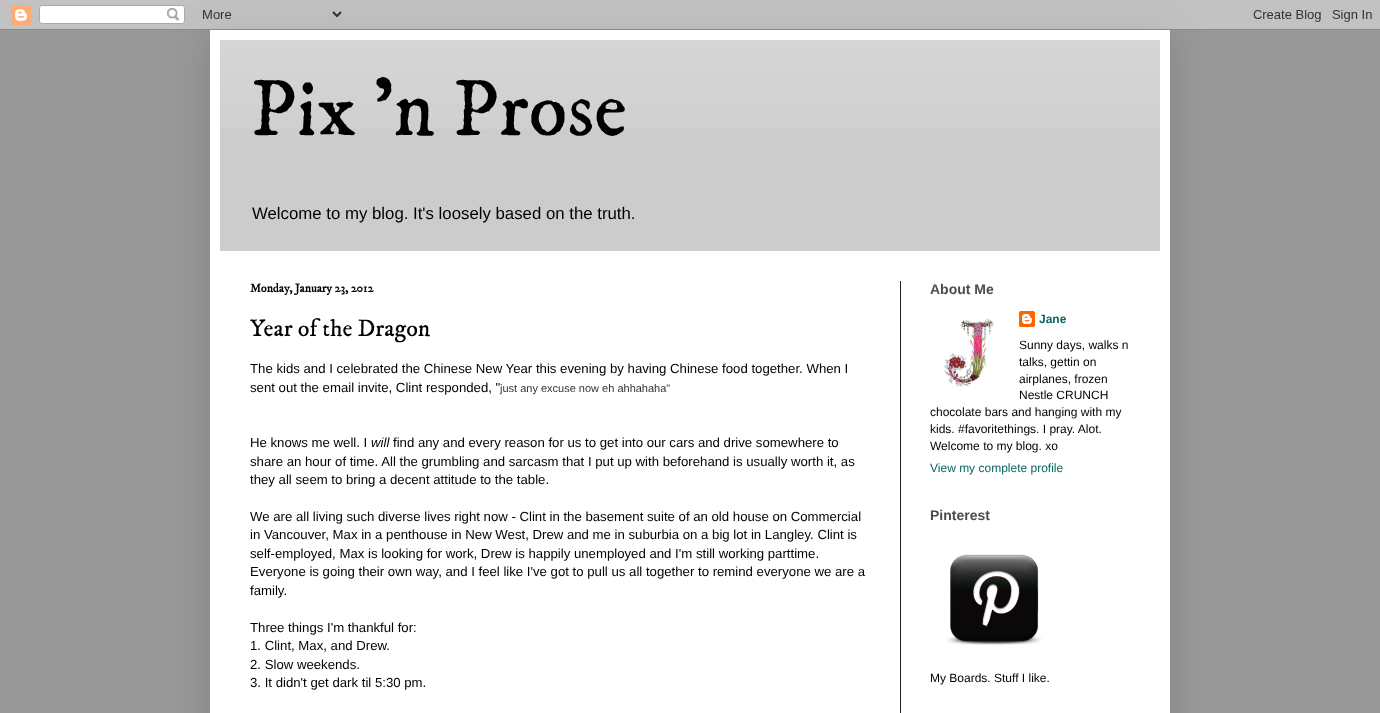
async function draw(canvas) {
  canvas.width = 1380
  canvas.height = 713
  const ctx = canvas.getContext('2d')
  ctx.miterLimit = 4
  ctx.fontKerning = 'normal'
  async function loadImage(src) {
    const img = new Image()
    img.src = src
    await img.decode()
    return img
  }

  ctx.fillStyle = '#999'
  ctx.fillRect(0, 0, 1380, 713)
  ctx.fillStyle = '#00000026'
  ctx.filter = 'blur(20px)'
  ctx.beginPath()
  ctx.rect(210, 30, 960, 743)
  ctx.fill()
  ctx.filter = 'none'
  ctx.drawImage(await loadImage('image0.png'), 0, 0, 1380, 30)
  ctx.fillStyle = '#fff'
  ctx.fillRect(210, 30, 960, 683)
  ctx.fillStyle = '#ccc'
  ctx.fillRect(220, 40, 940, 211)
  ctx.drawImage(await loadImage('image1.png'), 220, 40, 940, 89)
  ctx.font = '80px IM FELL DW Pica'
  ctx.fillStyle = '#000'
  ctx.fillText('Pix \'n Prose', 250, 135)
  ctx.font = '16.8px Liberation Sans'
  ctx.fillText('Welcome to my blog. It\'s loosely based on the truth.', 252, 219)
  ctx.fillStyle = '#222'
  ctx.fillRect(900, 281, 1, 432)
  ctx.font = 'bold 12px IM FELL DW Pica'
  ctx.fillStyle = '#000'
  ctx.fillText('Monday, January 23, 2012', 250, 292)
  ctx.font = '24px IM FELL DW Pica'
  ctx.fillText('Year of the Dragon', 250, 336)
  ctx.font = '13.2px Liberation Sans'
  ctx.fillText('The kids and I celebrated the Chinese New Year this evening by having Chinese food together. When I', 250, 373)
  ctx.fillText('sent out the email invite, Clint responded, "', 250, 392)
  ctx.font = '11px Liberation Sans'
  ctx.fillStyle = '#333'
  ctx.fillText('just any excuse now eh ahhahaha"', 500, 392)
  ctx.font = '13.2px Liberation Sans'
  ctx.fillStyle = '#000'
  ctx.fillText('He knows me well. I', 250, 447)
  ctx.font = 'italic 13.2px Liberation Sans'
  ctx.fillText('will', 371, 447)
  ctx.font = '13.2px Liberation Sans'
  ctx.fillText('find any and every reason for us to get into our cars and drive somewhere to', 393, 447)
  ctx.fillText('share an hour of time. All the grumbling and sarcasm that I put up with beforehand is usually worth it, as', 250, 466)
  ctx.fillText('they all seem to bring a decent attitude to the table.', 250, 484)
  ctx.fillText('We are all living such diverse lives right now - Clint in the basement suite of an old house on Commercial', 250, 521)
  ctx.fillText('in Vancouver, Max in a penthouse in New West, Drew and me in suburbia on a big lot in Langley. Clint is', 250, 539)
  ctx.fillText('self-employed, Max is looking for work, Drew is happily unemployed and I\'m still working parttime.', 250, 558)
  ctx.fillText('Everyone is going their own way, and I feel like I\'ve got to pull us all together to remind everyone we are a', 250, 576)
  ctx.fillText('family.', 250, 595)
  ctx.fillText('Three things I\'m thankful for:', 250, 632)
  ctx.fillText('1. Clint, Max, and Drew.', 250, 650)
  ctx.fillText('2. Slow weekends.', 250, 669)
  ctx.fillText('3. It didn\'t get dark til 5:30 pm.', 250, 687)
  ctx.font = 'bold 14px Liberation Sans'
  ctx.fillStyle = '#4c4c4c'
  ctx.fillText('About Me', 930, 294)
  ctx.drawImage(await loadImage('image2.png'), 1019, 311, 16, 16)
  ctx.font = 'bold 12px Liberation Sans'
  ctx.fillStyle = '#086662'
  ctx.fillText('Jane', 1039, 323)
  ctx.font = '12px Liberation Sans'
  ctx.fillStyle = '#000'
  ctx.fillText('Sunny days, walks n', 1019, 349)
  ctx.fillText('talks, gettin on', 1019, 366)
  ctx.fillText('airplanes, frozen', 1019, 383)
  ctx.fillText('Nestle CRUNCH', 1019, 399)
  ctx.fillText('chocolate bars and hanging with my', 930, 416)
  ctx.fillText('kids. #favoritethings. I pray. Alot.', 930, 433)
  ctx.fillText('Welcome to my blog. xo', 930, 450)
  ctx.drawImage(await loadImage('image3.png'), 944, 318, 50, 69)
  ctx.fillStyle = '#086662'
  ctx.fillText('View my complete profile', 930, 472)
  ctx.font = 'bold 14px Liberation Sans'
  ctx.fillStyle = '#4c4c4c'
  ctx.fillText('Pinterest', 930, 520)
  ctx.drawImage(await loadImage('image4.png'), 946, 554, 96, 91)
  ctx.font = '12px Liberation Sans'
  ctx.fillStyle = '#000'
  ctx.fillText('My Boards. Stuff I like.', 930, 682)
}

draw(document.querySelector('canvas'))
